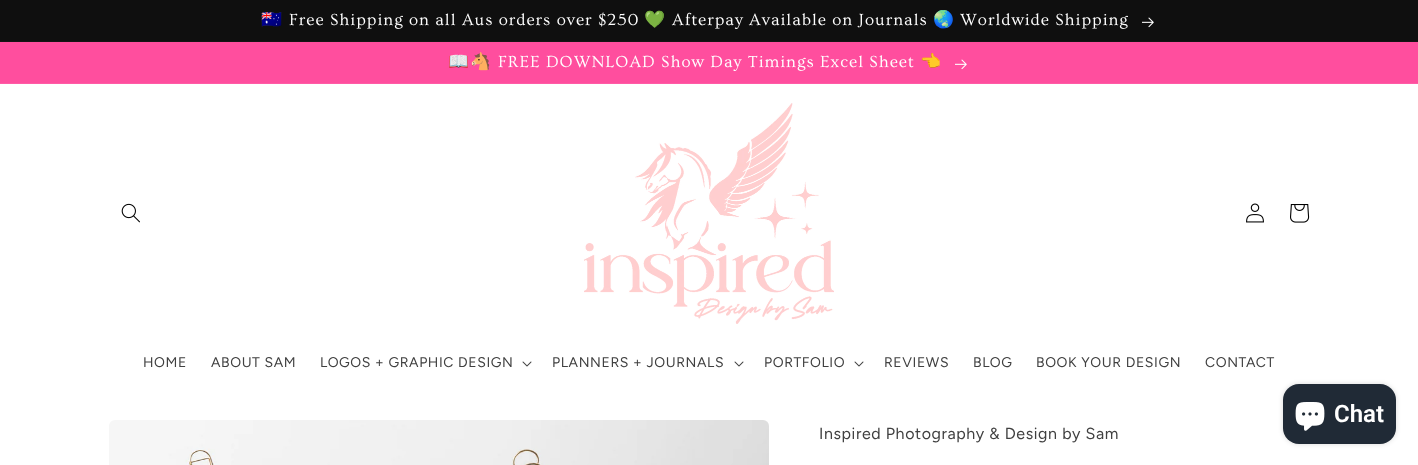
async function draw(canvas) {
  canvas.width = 1418
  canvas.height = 465
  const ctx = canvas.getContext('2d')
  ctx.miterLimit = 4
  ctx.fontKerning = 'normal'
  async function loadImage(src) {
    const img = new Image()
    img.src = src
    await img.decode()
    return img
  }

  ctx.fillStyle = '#fff'
  ctx.fillRect(0, 0, 1418, 465)
  ctx.fillStyle = '#141414'
  ctx.fillRect(0, 41, 1418, 1)
  ctx.fillStyle = '#0f0f0f'
  ctx.fillRect(0, 0, 1418, 41)
  ctx.letterSpacing = '1px'
  ctx.font = '16.9px Noto Color Emoji'
  ctx.fillStyle = '#fff'
  ctx.fillText('🇦🇺', 261, 25)
  ctx.font = '16.9px Ovo'
  ctx.fillText('Free Shipping on all Aus orders over $250', 289, 25)
  ctx.font = '16.9px Noto Color Emoji'
  ctx.fillText('💚', 644, 25)
  ctx.font = '16.9px Ovo'
  ctx.fillText('Afterpay Available on Journals', 672, 25)
  ctx.font = '16.9px Noto Color Emoji'
  ctx.fillText('🌏', 933, 25)
  ctx.font = '16.9px Ovo'
  ctx.fillText('Worldwide Shipping', 960, 25)
  ctx.drawImage(await loadImage('image0.png'), 1142, 17, 12, 11)
  ctx.fillStyle = '#ff4e9e'
  ctx.fillRect(0, 42, 1418, 41)
  ctx.fillStyle = '#ff5ca6'
  ctx.fillRect(0, 83, 1418, 1)
  ctx.font = '16.9px Noto Color Emoji'
  ctx.fillStyle = '#fff'
  ctx.fillText('📖🐴', 448, 67)
  ctx.font = '16.9px Ovo'
  ctx.fillText('FREE DOWNLOAD Show Day Timings Excel Sheet', 498, 67)
  ctx.font = '16.9px Noto Color Emoji'
  ctx.fillText('👈', 920, 67)
  ctx.drawImage(await loadImage('image1.png'), 955, 59, 12, 11)
  ctx.drawImage(await loadImage('image2.png'), 121, 203, 19, 20)
  ctx.drawImage(await loadImage('image3.png'), 584, 103, 250, 221)
  ctx.drawImage(await loadImage('image4.png'), 1246, 203, 18, 20)
  ctx.drawImage(await loadImage('image5.png'), 1290, 204, 20, 19)
  ctx.letterSpacing = '0.6px'
  ctx.font = '14px Figtree'
  ctx.fillStyle = '#404040'
  ctx.fillText('HOME', 143, 367)
  ctx.fillText('ABOUT SAM', 211, 367)
  ctx.fillText('LOGOS + GRAPHIC DESIGN', 320, 367)
  ctx.drawImage(await loadImage('image6.png'), 522, 361, 10, 6)
  ctx.fillText('PLANNERS + JOURNALS', 552, 367)
  ctx.drawImage(await loadImage('image6.png'), 734, 361, 10, 6)
  ctx.fillText('PORTFOLIO', 764, 367)
  ctx.drawImage(await loadImage('image6.png'), 854, 361, 10, 6)
  ctx.fillText('REVIEWS', 884, 367)
  ctx.fillText('BLOG', 973, 367)
  ctx.fillText('BOOK YOUR DESIGN', 1036, 367)
  ctx.fillText('CONTACT', 1205, 367)
  ctx.fillStyle = '#00000026'
  ctx.filter = 'blur(2.5px)'
  ctx.beginPath()
  ctx.roundRect(1283, 384, 113, 60, 16)
  ctx.fill()
  ctx.filter = 'none'
  ctx.fillStyle = '#202a36'
  ctx.beginPath()
  ctx.roundRect(1283, 384, 113, 60, 16)
  ctx.fill()
  ctx.drawImage(await loadImage('image7.png'), 1295, 402, 30, 29)
  ctx.letterSpacing = '0px'
  ctx.font = '600 24px Roboto'
  ctx.fillStyle = '#fff'
  ctx.fillText('Chat', 1334, 422)
  ctx.drawImage(await loadImage('image8.png'), 109, 420, 660, 45)
  ctx.letterSpacing = '0.6px'
  ctx.font = '16px Figtree'
  ctx.fillStyle = '#404040'
  ctx.fillText('Inspired Photography & Design by Sam', 819, 439)
}

draw(document.querySelector('canvas'))
